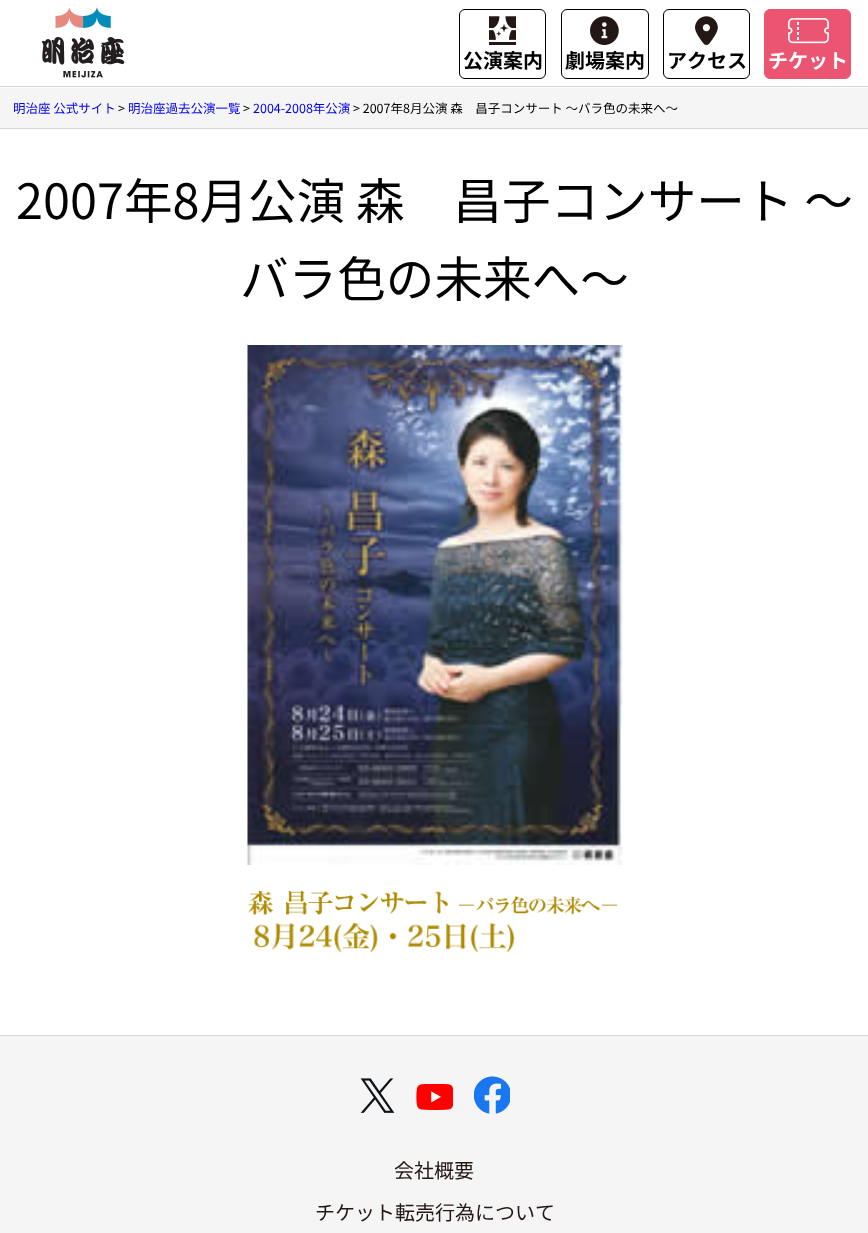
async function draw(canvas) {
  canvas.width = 868
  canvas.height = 1233
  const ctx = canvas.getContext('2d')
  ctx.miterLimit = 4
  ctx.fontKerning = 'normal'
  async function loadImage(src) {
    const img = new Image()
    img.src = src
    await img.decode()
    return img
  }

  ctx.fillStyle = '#fff'
  ctx.fillRect(0, 0, 868, 1233)
  ctx.fillStyle = '#d7d7d7'
  ctx.fillRect(0, 86, 868, 1)
  ctx.drawImage(await loadImage('image0.png'), 42, 7, 83, 71)
  ctx.beginPath()
  ctx.roundRect(459.5, 9.5, 86, 69, 5.5)
  ctx.strokeStyle = '#000'
  ctx.stroke()
  ctx.drawImage(await loadImage('image1.png'), 489, 16, 27, 29)
  ctx.font = 'bold 20px Noto Sans JP'
  ctx.fillStyle = '#000'
  ctx.fillText('公演案内', 463, 68)
  ctx.beginPath()
  ctx.roundRect(561.5, 9.5, 87, 69, 5.5)
  ctx.stroke()
  ctx.drawImage(await loadImage('image2.png'), 590, 16, 29, 29)
  ctx.fillText('劇場案内', 565, 68)
  ctx.beginPath()
  ctx.roundRect(663.5, 9.5, 86, 69, 5.5)
  ctx.stroke()
  ctx.drawImage(await loadImage('image3.png'), 695, 16, 23, 29)
  ctx.fillText('アクセス', 667, 68)
  ctx.fillStyle = '#ec5571'
  ctx.beginPath()
  ctx.roundRect(764.5, 9.5, 86, 69, 5.5)
  ctx.fill()
  ctx.strokeStyle = '#ec5571'
  ctx.stroke()
  ctx.drawImage(await loadImage('image4.png'), 788, 18, 41, 26)
  ctx.fillStyle = '#fff'
  ctx.fillText('チケット', 768, 68)
  ctx.fillStyle = '#f5f5f5'
  ctx.fillRect(0, 88, 868, 40)
  ctx.fillStyle = '#d7d7d7'
  ctx.fillRect(0, 128, 868, 1)
  ctx.font = '12.5px Noto Sans JP'
  ctx.fillStyle = '#00e'
  ctx.fillText('明治座 公式サイト', 13, 113)
  ctx.fillStyle = '#000'
  ctx.fillText('>', 118, 113)
  ctx.fillStyle = '#00e'
  ctx.fillText('明治座過去公演一覧', 128, 113)
  ctx.fillStyle = '#000'
  ctx.fillText('>', 243, 113)
  ctx.fillStyle = '#00e'
  ctx.fillText('2004-2008年公演', 253, 113)
  ctx.fillStyle = '#000'
  ctx.fillText('> 2007年8月公演 森　昌子コンサート ～バラ色の未来へ～', 353, 113)
  ctx.font = '48.6px Noto Sans JP'
  ctx.fillText('2007年8月公演 森　昌子コンサート ～', 16, 219)
  ctx.fillText('バラ色の未来へ～', 240, 297)
  ctx.drawImage(await loadImage('image5.png'), 247, 345, 376, 520)
  ctx.drawImage(await loadImage('image6.png'), 248, 890, 369, 25)
  ctx.drawImage(await loadImage('image7.png'), 254, 922, 261, 31)
  ctx.fillStyle = '#f5f5f5'
  ctx.fillRect(0, 1036, 868, 197)
  ctx.fillStyle = '#d7d7d7'
  ctx.fillRect(0, 1035, 868, 1)
  ctx.drawImage(await loadImage('image8.png'), 360, 1078, 35, 35)
  ctx.drawImage(await loadImage('image9.png'), 416, 1084, 37, 26)
  ctx.drawImage(await loadImage('image10.png'), 474, 1076, 36, 38)
  ctx.font = '20px Noto Sans JP'
  ctx.fillStyle = '#231815'
  ctx.fillText('会社概要', 394, 1178)
  ctx.fillText('チケット転売行為について', 315, 1220)
}

draw(document.querySelector('canvas'))
